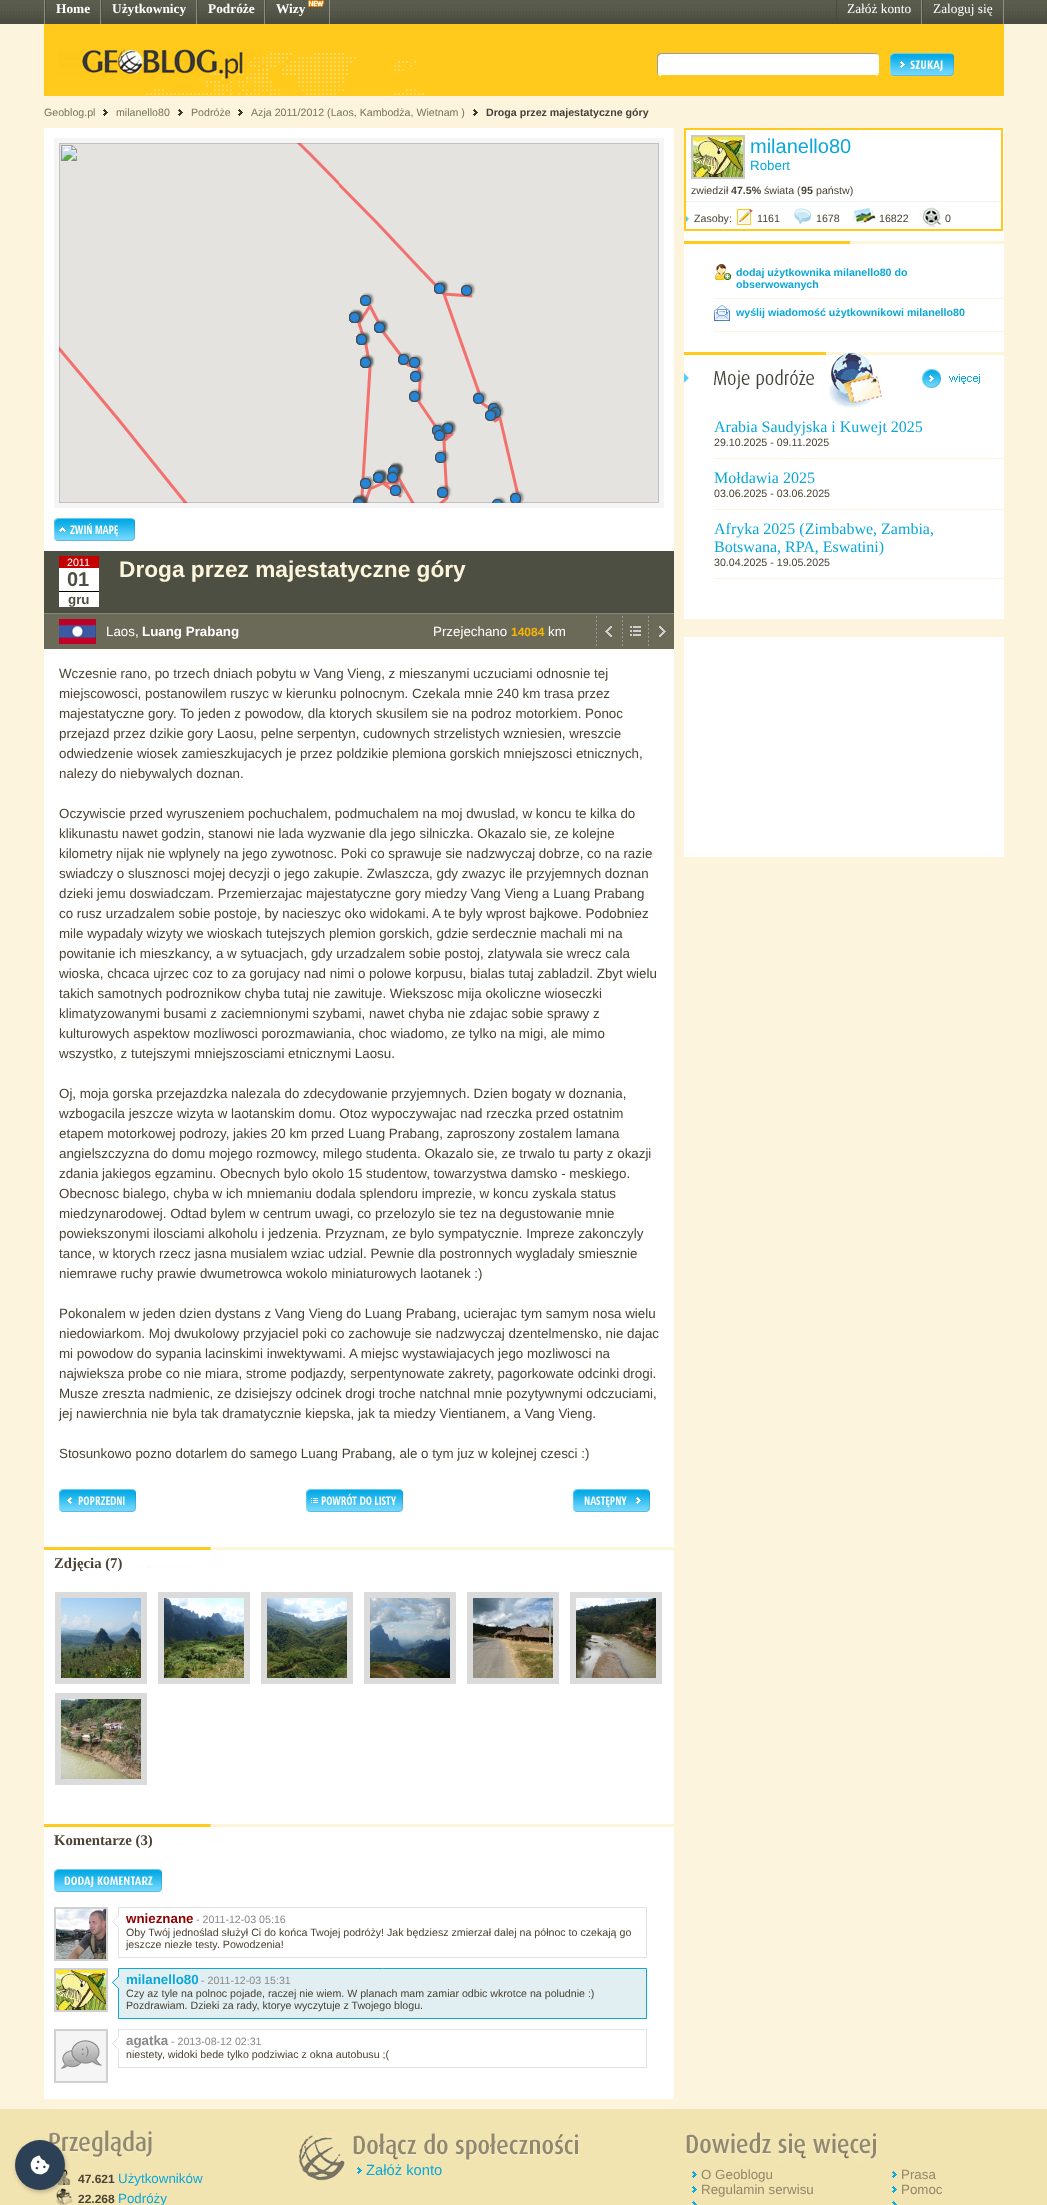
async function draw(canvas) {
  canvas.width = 1047
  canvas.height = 2205
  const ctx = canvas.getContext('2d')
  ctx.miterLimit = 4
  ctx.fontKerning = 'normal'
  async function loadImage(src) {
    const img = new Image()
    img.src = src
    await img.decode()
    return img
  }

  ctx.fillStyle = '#fcf4dd'
  ctx.fillRect(0, 0, 1047, 2205)
  ctx.drawImage(await loadImage('image0.png'), 0, 0, 1047, 24)
  ctx.fillStyle = '#8c8d83'
  ctx.fillRect(44, 0, 1, 24)
  ctx.fillRect(100, 0, 1, 24)
  ctx.fillStyle = '#494a41'
  ctx.fillRect(45, 0, 1, 24)
  ctx.font = 'bold 13.35px Liberation Serif'
  ctx.fillStyle = '#fff'
  ctx.fillText('Home', 56, 13)
  ctx.fillStyle = '#8c8d83'
  ctx.fillRect(196, 0, 1, 24)
  ctx.fillStyle = '#494a41'
  ctx.fillRect(101, 0, 1, 24)
  ctx.fillStyle = '#fff'
  ctx.fillText('Użytkownicy', 112, 13)
  ctx.fillStyle = '#8c8d83'
  ctx.fillRect(264, 0, 1, 24)
  ctx.fillStyle = '#494a41'
  ctx.fillRect(197, 0, 1, 24)
  ctx.fillStyle = '#fff'
  ctx.fillText('Podróże', 208, 13)
  ctx.fillStyle = '#8c8d83'
  ctx.fillRect(329, 0, 1, 24)
  ctx.fillStyle = '#494a41'
  ctx.fillRect(265, 0, 1, 24)
  ctx.fillStyle = '#fff'
  ctx.fillText('Wizy', 276, 13)
  ctx.drawImage(await loadImage('image1.png'), 308, 0, 16, 7)
  ctx.fillStyle = '#8c8d83'
  ctx.fillRect(921, 0, 1, 24)
  ctx.fillStyle = '#494a41'
  ctx.fillRect(836, 0, 1, 24)
  ctx.font = '13.35px Liberation Serif'
  ctx.fillStyle = '#fff'
  ctx.fillText('Załóż konto', 847, 13)
  ctx.fillStyle = '#8c8d83'
  ctx.fillRect(1003, 0, 1, 24)
  ctx.fillStyle = '#494a41'
  ctx.fillRect(922, 0, 1, 24)
  ctx.fillStyle = '#fff'
  ctx.fillText('Zaloguj się', 933, 13)
  ctx.fillStyle = '#ffca1c'
  ctx.fillRect(44, 24, 960, 72)
  ctx.drawImage(await loadImage('image2.png'), 44, 48, 380, 48)
  ctx.drawImage(await loadImage('image3.png'), 657, 52, 4, 25)
  ctx.fillStyle = '#fff'
  ctx.fillRect(661, 74, 215, 1)
  ctx.drawImage(await loadImage('image4.png'), 661, 52, 215, 22)
  ctx.drawImage(await loadImage('image5.png'), 876, 52, 4, 25)
  ctx.drawImage(await loadImage('image6.png'), 890, 53, 64, 23)
  ctx.font = '10.65px Liberation Sans'
  ctx.fillStyle = '#76765c'
  ctx.fillText('Geoblog.pl', 44, 116)
  ctx.drawImage(await loadImage('image7.png'), 103, 109, 5, 7)
  ctx.fillText('milanello80', 116, 116)
  ctx.drawImage(await loadImage('image7.png'), 178, 109, 5, 7)
  ctx.fillText('Podróże', 191, 116)
  ctx.drawImage(await loadImage('image7.png'), 238, 109, 5, 7)
  ctx.fillText('Azja 2011/2012 (Laos, Kambodża, Wietnam )', 251, 116)
  ctx.drawImage(await loadImage('image7.png'), 473, 109, 5, 7)
  ctx.font = 'bold 10.65px Liberation Sans'
  ctx.fillStyle = '#443f39'
  ctx.fillText('Droga przez majestatyczne góry', 486, 116)
  ctx.fillStyle = '#fff'
  ctx.fillRect(684, 128, 320, 491)
  ctx.strokeStyle = '#ffca1c'
  ctx.lineWidth = 2
  ctx.strokeRect(685, 129, 317, 101)
  ctx.fillStyle = '#f0f0f0'
  ctx.fillRect(686, 201, 315, 1)
  ctx.strokeStyle = '#cacaca'
  ctx.strokeRect(692, 136, 52, 42)
  ctx.drawImage(await loadImage('image8.png'), 693, 137, 50, 40)
  ctx.font = '20px Liberation Sans'
  ctx.fillStyle = '#0ba7d8'
  ctx.fillText('milanello80', 750, 153)
  ctx.font = '13.35px Liberation Sans'
  ctx.fillText('Robert', 750, 170)
  ctx.font = '10.65px Liberation Sans'
  ctx.fillStyle = '#4b4233'
  ctx.fillText('zwiedził', 691, 194)
  ctx.font = 'bold 10.65px Liberation Sans'
  ctx.fillText('47.5%', 731, 194)
  ctx.font = '10.65px Liberation Sans'
  ctx.fillText('świata (', 764, 194)
  ctx.font = 'bold 10.65px Liberation Sans'
  ctx.fillText('95', 801, 194)
  ctx.font = '10.65px Liberation Sans'
  ctx.fillText('państw)', 816, 194)
  ctx.drawImage(await loadImage('image9.png'), 686, 216, 3, 6)
  ctx.fillText('Zasoby:', 694, 222)
  ctx.drawImage(await loadImage('image10.png'), 737, 209, 16, 16)
  ctx.fillText('1161', 757, 222)
  ctx.drawImage(await loadImage('image11.png'), 794, 208, 17, 16)
  ctx.fillText('1678', 816, 222)
  ctx.drawImage(await loadImage('image12.png'), 853, 207, 23, 17)
  ctx.fillText('16822', 879, 222)
  ctx.drawImage(await loadImage('image13.png'), 922, 207, 19, 20)
  ctx.fillText('0', 945, 222)
  ctx.fillStyle = '#fbf6d9'
  ctx.fillRect(864, 241, 140, 3)
  ctx.drawImage(await loadImage('image14.png'), 684, 241, 180, 21)
  ctx.fillStyle = '#faf5df'
  ctx.fillRect(714, 298, 290, 1)
  ctx.drawImage(await loadImage('image15.png'), 715, 264, 16, 16)
  ctx.font = 'bold 10.65px Liberation Sans'
  ctx.fillStyle = '#0ba7d8'
  ctx.fillText('dodaj użytkownika milanello80 do', 736, 276)
  ctx.fillText('obserwowanych', 736, 288)
  ctx.fillStyle = '#faf5df'
  ctx.fillRect(714, 331, 290, 1)
  ctx.drawImage(await loadImage('image16.png'), 714, 305, 16, 16)
  ctx.fillStyle = '#0ba7d8'
  ctx.fillText('wyślij wiadomość użytkownikowi milanello80', 736, 316)
  ctx.fillStyle = '#fbf6d9'
  ctx.fillRect(884, 352, 120, 3)
  ctx.drawImage(await loadImage('image17.png'), 684, 352, 200, 56)
  ctx.drawImage(await loadImage('image18.png'), 922, 369, 58, 19)
  ctx.fillStyle = '#fcf5dc'
  ctx.fillRect(714, 458, 290, 1)
  ctx.font = '16px Liberation Serif'
  ctx.fillStyle = '#0ba7d8'
  ctx.fillText('Arabia Saudyjska i Kuwejt 2025', 714, 432)
  ctx.font = '10.65px Liberation Sans'
  ctx.fillStyle = '#4b4233'
  ctx.fillText('29.10.2025 - 09.11.2025', 714, 446)
  ctx.fillStyle = '#fcf5dc'
  ctx.fillRect(714, 509, 290, 1)
  ctx.font = '16px Liberation Serif'
  ctx.fillStyle = '#0ba7d8'
  ctx.fillText('Mołdawia 2025', 714, 483)
  ctx.font = '10.65px Liberation Sans'
  ctx.fillStyle = '#4b4233'
  ctx.fillText('03.06.2025 - 03.06.2025', 714, 497)
  ctx.fillStyle = '#fcf5dc'
  ctx.fillRect(714, 578, 290, 1)
  ctx.font = '16px Liberation Serif'
  ctx.fillStyle = '#0ba7d8'
  ctx.fillText('Afryka 2025 (Zimbabwe, Zambia,', 714, 534)
  ctx.fillText('Botswana, RPA, Eswatini)', 714, 552)
  ctx.font = '10.65px Liberation Sans'
  ctx.fillStyle = '#4b4233'
  ctx.fillText('30.04.2025 - 19.05.2025', 714, 566)
  ctx.fillStyle = '#fff'
  ctx.fillRect(684, 637, 320, 220)
  ctx.fillRect(44, 128, 630, 1971)
  ctx.drawImage(await loadImage('image19.png'), 54, 138, 610, 370)
  ctx.drawImage(await loadImage('image20.png'), 54, 518, 81, 23)
  ctx.fillStyle = '#4d4f42'
  ctx.fillRect(44, 551, 630, 61)
  ctx.fillStyle = '#484a3d'
  ctx.fillRect(44, 612, 630, 1)
  ctx.fillStyle = '#c40000'
  ctx.fillRect(59, 556, 40, 12)
  ctx.fillStyle = '#fff'
  ctx.fillText('2011', 67, 566)
  ctx.fillRect(59, 568, 40, 23)
  ctx.font = 'bold 20px Liberation Sans'
  ctx.fillStyle = '#4d4f42'
  ctx.fillText('01', 67, 586)
  ctx.fillStyle = '#fff'
  ctx.fillRect(59, 592, 40, 15)
  ctx.fillStyle = '#000'
  ctx.fillRect(59, 591, 40, 1)
  ctx.font = 'bold 13.35px Liberation Sans'
  ctx.fillStyle = '#4d4f42'
  ctx.fillText('gru', 68, 604)
  ctx.font = 'bold 22.7px Liberation Sans'
  ctx.fillStyle = '#fcf5dc'
  ctx.fillText('Droga przez majestatyczne góry', 119, 577)
  ctx.fillStyle = '#6b6a58'
  ctx.fillRect(44, 614, 630, 35)
  ctx.fillStyle = '#898b7e'
  ctx.fillRect(44, 613, 630, 1)
  ctx.drawImage(await loadImage('image21.png'), 59, 619, 37, 25)
  ctx.font = '13.35px Liberation Sans'
  ctx.fillStyle = '#fff'
  ctx.fillText('Laos,', 106, 636)
  ctx.font = 'bold 13.35px Liberation Sans'
  ctx.fillText('Luang Prabang', 142, 636)
  ctx.font = '13.35px Liberation Sans'
  ctx.fillText('Przejechano', 433, 636)
  ctx.font = 'bold 12px Liberation Sans'
  ctx.fillStyle = '#f9b500'
  ctx.fillText('14084', 511, 636)
  ctx.font = '13.35px Liberation Sans'
  ctx.fillStyle = '#fff'
  ctx.fillText('km', 548, 636)
  ctx.drawImage(await loadImage('image22.png'), 596, 616, 16, 30)
  ctx.drawImage(await loadImage('image23.png'), 622, 616, 19, 30)
  ctx.drawImage(await loadImage('image24.png'), 648, 616, 18, 30)
  ctx.fillStyle = '#4b4233'
  ctx.fillText('Wczesnie rano, po trzech dniach pobytu w Vang Vieng, z mieszanymi uczuciami odnosnie tej', 59, 678)
  ctx.fillText('miejscowosci, postanowilem ruszyc w kierunku polnocnym. Czekala mnie 240 km trasa przez', 59, 698)
  ctx.fillText('majestatyczne gory. To jeden z powodow, dla ktorych skusilem sie na podroz motorkiem. Ponoc', 59, 718)
  ctx.fillText('przejazd przez dzikie gory Laosu, pelne serpentyn, cudownych strzelistych wzniesien, wreszcie', 59, 738)
  ctx.fillText('odwiedzenie wiosek zamieszkujacych je przez poldzikie plemiona gorskich mniejszosci etnicznych,', 59, 758)
  ctx.fillText('nalezy do niebywalych doznan.', 59, 778)
  ctx.fillText('Oczywiscie przed wyruszeniem pochuchalem, podmuchalem na moj dwuslad, w koncu te kilka do', 59, 818)
  ctx.fillText('klikunastu nawet godzin, stanowi nie lada wyzwanie dla jego silniczka. Okazalo sie, ze kolejne', 59, 838)
  ctx.fillText('kilometry nijak nie wplynely na jego zywotnosc. Poki co sprawuje sie nadzwyczaj dobrze, co na razie', 59, 858)
  ctx.fillText('swiadczy o slusznosci mojej decyzji o jego zakupie. Zwlaszcza, gdy zwazyc ile przyjemnych doznan', 59, 878)
  ctx.fillText('dzieki jemu doswiadczam. Przemierzajac majestatyczne gory miedzy Vang Vieng a Luang Prabang', 59, 898)
  ctx.fillText('co rusz urzadzalem sobie postoje, by nacieszyc oko widokami. A te byly wprost bajkowe. Podobniez', 59, 918)
  ctx.fillText('mile wypadaly wizyty we wioskach tutejszych plemion gorskich, gdzie serdecznie machali mi na', 59, 938)
  ctx.fillText('powitanie ich mieszkancy, a w sytuacjach, gdy urzadzalem sobie postoj, zlatywala sie wrecz cala', 59, 958)
  ctx.fillText('wioska, chcaca ujrzec coz to za gorujacy nad nimi o polowe korpusu, bialas tutaj zabladzil. Zbyt wielu', 59, 978)
  ctx.fillText('takich samotnych podroznikow chyba tutaj nie zawituje. Wiekszosc mija okoliczne wioseczki', 59, 998)
  ctx.fillText('klimatyzowanymi busami z zaciemnionymi szybami, nawet chyba nie zdajac sobie sprawy z', 59, 1018)
  ctx.fillText('kulturowych aspektow mozliwosci porozmawiania, choc wiadomo, ze tylko na migi, ale mimo', 59, 1038)
  ctx.fillText('wszystko, z tutejszymi mniejszosciami etnicznymi Laosu.', 59, 1058)
  ctx.fillText('Oj, moja gorska przejazdzka nalezala do zdecydowanie przyjemnych. Dzien bogaty w doznania,', 59, 1098)
  ctx.fillText('wzbogacila jeszcze wizyta w laotanskim domu. Otoz wypoczywajac nad rzeczka przed ostatnim', 59, 1118)
  ctx.fillText('etapem motorkowej podrozy, jakies 20 km przed Luang Prabang, zaproszony zostalem lamana', 59, 1138)
  ctx.fillText('angielszczyzna do domu mojego rozmowcy, milego studenta. Okazalo sie, ze trwalo tu party z okazji', 59, 1158)
  ctx.fillText('zdania jakiegos egzaminu. Obecnych bylo okolo 15 studentow, towarzystwa damsko - meskiego.', 59, 1178)
  ctx.fillText('Obecnosc bialego, chyba w ich mniemaniu dodala splendoru imprezie, w koncu zyskala status', 59, 1198)
  ctx.fillText('miedzynarodowej. Odtad bylem w centrum uwagi, co przelozylo sie tez na degustowanie mnie', 59, 1218)
  ctx.fillText('powiekszonymi ilosciami alkoholu i jedzenia. Przyznam, ze bylo sympatycznie. Impreze zakonczyly', 59, 1238)
  ctx.fillText('tance, w ktorych rzecz jasna musialem wziac udzial. Pewnie dla postronnych wygladaly smiesznie', 59, 1258)
  ctx.fillText('niemrawe ruchy prawie dwumetrowca wokolo miniaturowych laotanek :)', 59, 1278)
  ctx.fillText('Pokonalem w jeden dzien dystans z Vang Vieng do Luang Prabang, ucierajac tym samym nosa wielu', 59, 1318)
  ctx.fillText('niedowiarkom. Moj dwukolowy przyjaciel poki co zachowuje sie nadzwyczaj dzentelmensko, nie dajac', 59, 1338)
  ctx.fillText('mi powodow do sypania lacinskimi inwektywami. A miejsc wystawiajacych jego mozliwosci na', 59, 1358)
  ctx.fillText('najwieksza probe co nie miara, strome podjazdy, serpentynowate zakrety, pagorkowate odcinki drogi.', 59, 1378)
  ctx.fillText('Musze zreszta nadmienic, ze dzisiejszy odcinek drogi troche natchnal mnie pozytywnymi odczuciami,', 59, 1398)
  ctx.fillText('jej nawierchnia nie byla tak dramatycznie kiepska, jak ta miedzy Vientianem, a Vang Vieng.', 59, 1418)
  ctx.fillText('Stosunkowo pozno dotarlem do samego Luang Prabang, ale o tym juz w kolejnej czesci :)', 59, 1458)
  ctx.drawImage(await loadImage('image25.png'), 59, 1489, 77, 23)
  ctx.drawImage(await loadImage('image26.png'), 306, 1489, 97, 23)
  ctx.drawImage(await loadImage('image27.png'), 573, 1489, 77, 23)
  ctx.fillStyle = '#fbf6d9'
  ctx.fillRect(225, 1547, 449, 3)
  ctx.drawImage(await loadImage('image28.png'), 44, 1547, 181, 21)
  ctx.font = 'bold 14.75px Liberation Serif'
  ctx.fillStyle = '#4b4233'
  ctx.fillText('Zdjęcia (7)', 54, 1568)
  ctx.strokeStyle = '#dbdbdb'
  ctx.lineWidth = 6
  ctx.strokeRect(58, 1595, 86, 86)
  ctx.drawImage(await loadImage('image29.png'), 61, 1598, 80, 80)
  ctx.strokeRect(161, 1595, 86, 86)
  ctx.drawImage(await loadImage('image30.png'), 164, 1598, 80, 80)
  ctx.strokeRect(264, 1595, 86, 86)
  ctx.drawImage(await loadImage('image31.png'), 267, 1598, 80, 80)
  ctx.strokeRect(367, 1595, 86, 86)
  ctx.drawImage(await loadImage('image32.png'), 370, 1598, 80, 80)
  ctx.strokeRect(470, 1595, 86, 86)
  ctx.drawImage(await loadImage('image33.png'), 473, 1598, 80, 80)
  ctx.strokeRect(573, 1595, 86, 86)
  ctx.drawImage(await loadImage('image34.png'), 576, 1598, 80, 80)
  ctx.strokeRect(58, 1696, 86, 86)
  ctx.drawImage(await loadImage('image35.png'), 61, 1699, 80, 80)
  ctx.fillStyle = '#fbf6d9'
  ctx.fillRect(225, 1824, 449, 3)
  ctx.drawImage(await loadImage('image28.png'), 44, 1824, 181, 21)
  ctx.fillStyle = '#4b4233'
  ctx.fillText('Komentarze (3)', 54, 1845)
  ctx.drawImage(await loadImage('image36.png'), 54, 1869, 108, 23)
  ctx.strokeStyle = '#d0d0d0'
  ctx.lineWidth = 2
  ctx.strokeRect(55, 1908, 52, 52)
  ctx.drawImage(await loadImage('image37.png'), 56, 1909, 50, 50)
  ctx.strokeStyle = '#e2e2e2'
  ctx.lineWidth = 1
  ctx.strokeRect(118.5, 1907.5, 528, 50)
  ctx.drawImage(await loadImage('image38.png'), 112, 1916, 7, 11)
  ctx.font = 'bold 13.35px Liberation Sans'
  ctx.fillStyle = '#8d0002'
  ctx.fillText('wnieznane', 126, 1923)
  ctx.font = '10.65px Liberation Sans'
  ctx.fillStyle = '#898989'
  ctx.fillText('- 2011-12-03 05:16', 196, 1923)
  ctx.fillStyle = '#4b4233'
  ctx.fillText('Oby Twój jednoślad służył Ci do końca Twojej podróży! Jak będziesz zmierzał dalej na północ to czekają go', 126, 1936)
  ctx.fillText('jeszcze niezłe testy. Powodzenia!', 126, 1948)
  ctx.strokeStyle = '#d0d0d0'
  ctx.lineWidth = 2
  ctx.strokeRect(55, 1969, 52, 42)
  ctx.drawImage(await loadImage('image8.png'), 56, 1970, 50, 40)
  ctx.fillStyle = '#e1eff3'
  ctx.beginPath()
  ctx.rect(118.5, 1968.5, 528, 50)
  ctx.fill()
  ctx.strokeStyle = '#0ba7d8'
  ctx.lineWidth = 1
  ctx.stroke()
  ctx.drawImage(await loadImage('image39.png'), 112, 1977, 7, 11)
  ctx.font = 'bold 13.35px Liberation Sans'
  ctx.fillStyle = '#0ba7d8'
  ctx.fillText('milanello80', 126, 1984)
  ctx.font = '10.65px Liberation Sans'
  ctx.fillStyle = '#898989'
  ctx.fillText('- 2011-12-03 15:31', 201, 1984)
  ctx.fillStyle = '#4b4233'
  ctx.fillText('Czy az tyle na polnoc pojade, raczej nie wiem. W planach mam zamiar odbic wkrotce na poludnie :)', 126, 1997)
  ctx.fillText('Pozdrawiam. Dzieki za rady, ktorye wyczytuje z Twojego blogu.', 126, 2009)
  ctx.strokeStyle = '#d0d0d0'
  ctx.lineWidth = 2
  ctx.strokeRect(55, 2030, 52, 52)
  ctx.drawImage(await loadImage('image40.png'), 56, 2031, 50, 50)
  ctx.strokeStyle = '#e2e2e2'
  ctx.lineWidth = 1
  ctx.strokeRect(118.5, 2029.5, 528, 38)
  ctx.drawImage(await loadImage('image38.png'), 112, 2038, 7, 11)
  ctx.font = 'bold 13.35px Liberation Sans'
  ctx.fillStyle = '#898989'
  ctx.fillText('agatka', 126, 2045)
  ctx.font = '10.65px Liberation Sans'
  ctx.fillText('- 2013-08-12 02:31', 171, 2045)
  ctx.fillStyle = '#4b4233'
  ctx.fillText('niestety, widoki bede tylko podziwiac z okna autobusu ;(', 126, 2058)
  ctx.fillStyle = '#f2e4b1'
  ctx.fillRect(0, 2109, 1047, 96)
  ctx.drawImage(await loadImage('image45.png'), 48, 2129, 104, 32)
  ctx.drawImage(await loadImage('image46.png'), 55, 2169, 16, 16)
  ctx.drawImage(await loadImage('image47.png'), 55, 2188, 18, 17)
  ctx.fillStyle = '#00000040'
  ctx.filter = 'blur(2px)'
  ctx.beginPath()
  ctx.roundRect(16, 2142, 50, 50, 25)
  ctx.fill()
  ctx.filter = 'none'
  ctx.fillStyle = '#2d4156'
  ctx.beginPath()
  ctx.arc(40, 2165, 25, 0, 2 * Math.PI)
  ctx.fill()
  ctx.drawImage(await loadImage('image41.png'), 30, 2155, 20, 20)
  ctx.drawImage(await loadImage('image42.png'), 296, 2131, 52, 52)
  ctx.drawImage(await loadImage('image43.png'), 349, 2131, 234, 31)
  ctx.drawImage(await loadImage('image44.png'), 354, 2165, 9, 12)
  ctx.font = '14.75px Liberation Sans'
  ctx.fillStyle = '#0ba7d8'
  ctx.fillText('Załóż konto', 366, 2175)
  ctx.font = 'bold 12px Liberation Sans'
  ctx.fillStyle = '#4b4233'
  ctx.fillText('47.621', 78, 2183)
  ctx.font = '13.35px Liberation Sans'
  ctx.fillStyle = '#0ba7d8'
  ctx.fillText('Użytkowników', 118, 2183)
  ctx.font = 'bold 12px Liberation Sans'
  ctx.fillStyle = '#4b4233'
  ctx.fillText('22.268', 78, 2203)
  ctx.font = '13.35px Liberation Sans'
  ctx.fillStyle = '#0ba7d8'
  ctx.fillText('Podróży', 118, 2203)
  ctx.drawImage(await loadImage('image48.png'), 686, 2131, 192, 31)
  ctx.drawImage(await loadImage('image44.png'), 689, 2169, 9, 12)
  ctx.fillStyle = '#92886a'
  ctx.fillText('O Geoblogu', 701, 2179)
  ctx.drawImage(await loadImage('image44.png'), 689, 2184, 9, 12)
  ctx.fillText('Regulamin serwisu', 701, 2194)
  ctx.drawImage(await loadImage('image49.png'), 689, 2199, 8, 6)
  ctx.drawImage(await loadImage('image44.png'), 889, 2169, 9, 12)
  ctx.fillText('Prasa', 901, 2179)
  ctx.drawImage(await loadImage('image44.png'), 889, 2184, 9, 12)
  ctx.fillText('Pomoc', 901, 2194)
  ctx.drawImage(await loadImage('image49.png'), 889, 2199, 8, 6)
}

draw(document.querySelector('canvas'))
